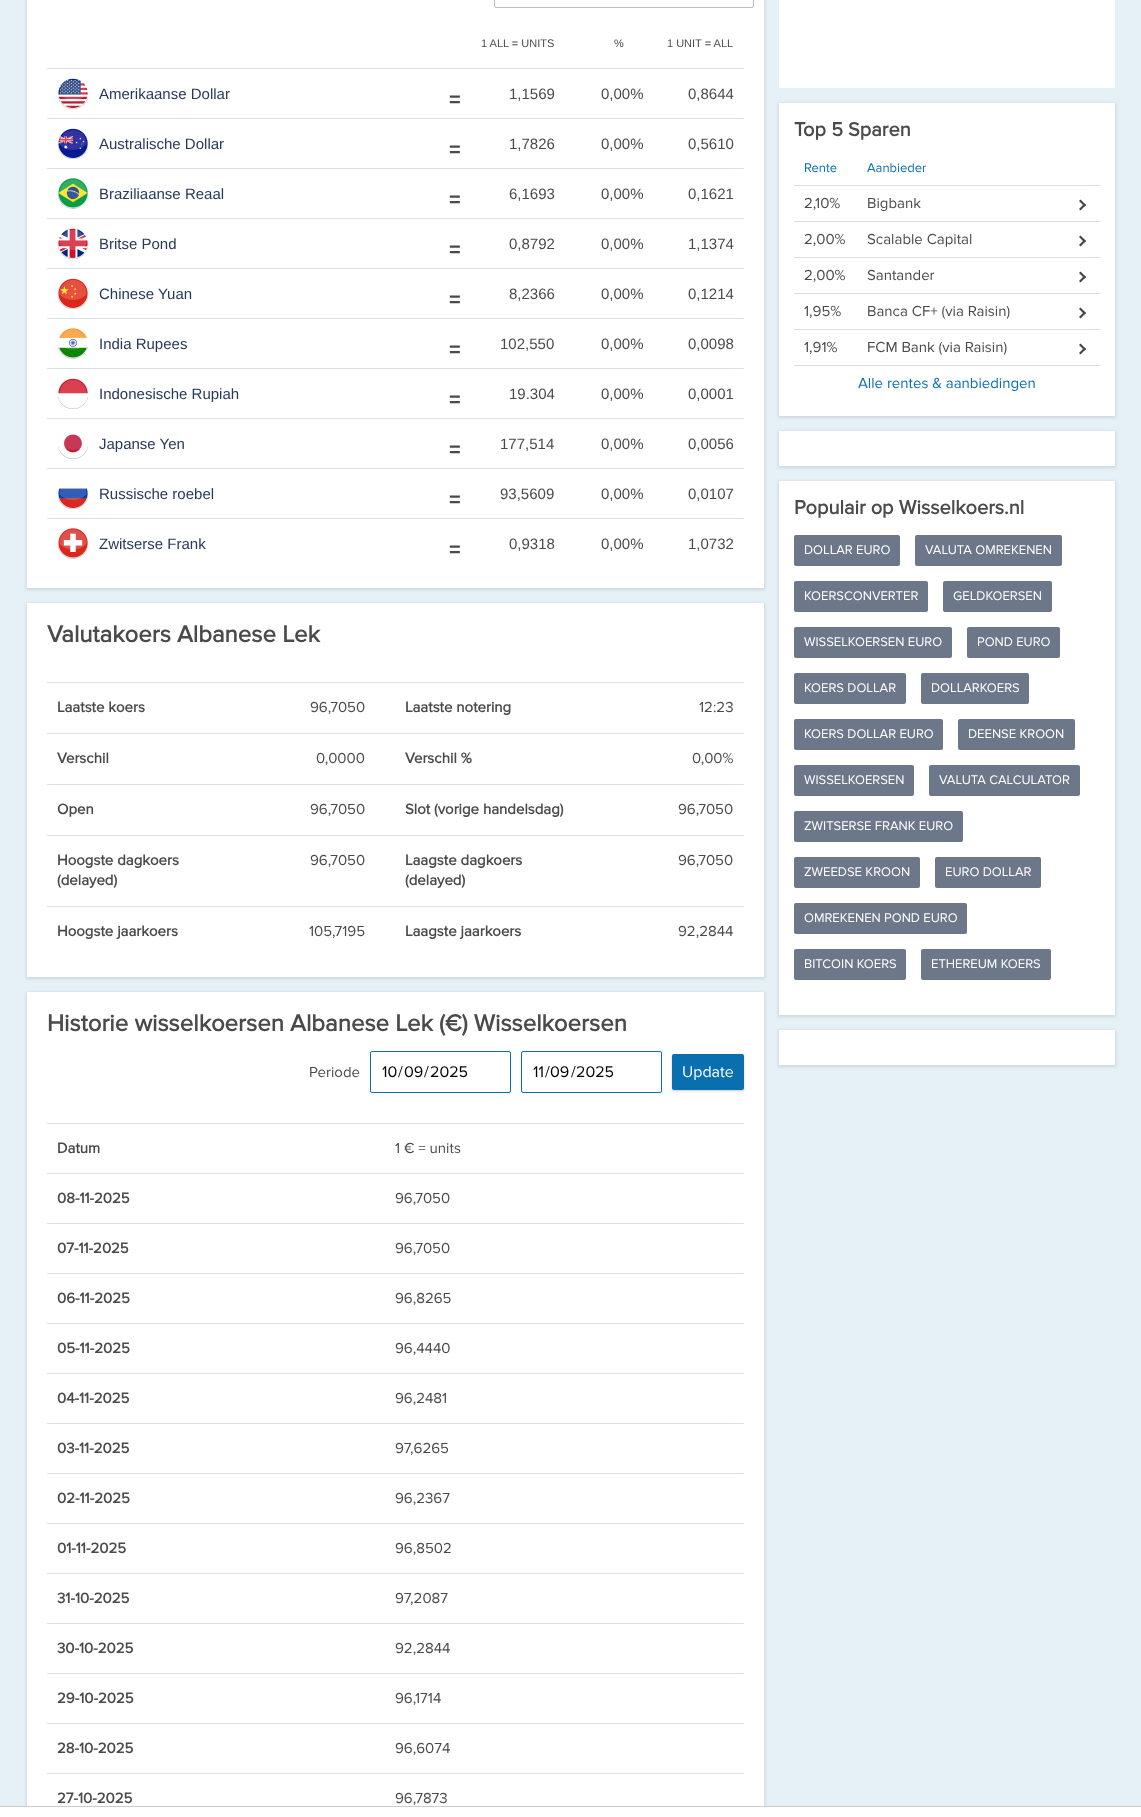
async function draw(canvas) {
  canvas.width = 1141
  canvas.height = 1817
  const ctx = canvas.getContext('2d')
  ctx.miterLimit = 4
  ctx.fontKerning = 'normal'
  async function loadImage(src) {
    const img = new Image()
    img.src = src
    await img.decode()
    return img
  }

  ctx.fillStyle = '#e6f1f7'
  ctx.fillRect(0, 0, 1141, 1817)
  ctx.fillStyle = '#0000001a'
  ctx.filter = 'blur(1.5px)'
  ctx.beginPath()
  ctx.rect(26, -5, 739, 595)
  ctx.fill()
  ctx.filter = 'none'
  ctx.fillStyle = '#fff'
  ctx.fillRect(27, 0, 737, 588)
  ctx.beginPath()
  ctx.roundRect(494.5, -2.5, 259, 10, 1.5)
  ctx.strokeStyle = '#b2bec4'
  ctx.stroke()
  ctx.font = '11px Liberation Sans'
  ctx.fillStyle = '#4a4a4a'
  ctx.fillText('1 ALL = UNITS', 481, 47)
  ctx.fillText('%', 614, 47)
  ctx.fillText('1 UNIT = ALL', 667, 47)
  ctx.fillStyle = '#dadfe2'
  ctx.fillRect(47, 68, 697, 1)
  ctx.drawImage(await loadImage('image0.png'), 58, 78, 30, 31)
  ctx.font = '15px Liberation Sans'
  ctx.fillStyle = '#27395a'
  ctx.fillText('Amerikaanse Dollar', 99, 99)
  ctx.font = 'bold 20px Liberation Sans'
  ctx.fillStyle = '#4a4a4a'
  ctx.fillText('=', 449, 106)
  ctx.font = '15px Liberation Sans'
  ctx.fillText('1,1569', 509, 99)
  ctx.fillText('0,00%', 601, 99)
  ctx.fillText('0,8644', 688, 99)
  ctx.fillStyle = '#dadfe2'
  ctx.fillRect(47, 118, 697, 1)
  ctx.drawImage(await loadImage('image1.png'), 58, 128, 30, 31)
  ctx.fillStyle = '#27395a'
  ctx.fillText('Australische Dollar', 99, 149)
  ctx.font = 'bold 20px Liberation Sans'
  ctx.fillStyle = '#4a4a4a'
  ctx.fillText('=', 449, 156)
  ctx.font = '15px Liberation Sans'
  ctx.fillText('1,7826', 509, 149)
  ctx.fillText('0,00%', 601, 149)
  ctx.fillText('0,5610', 688, 149)
  ctx.fillStyle = '#dadfe2'
  ctx.fillRect(47, 168, 697, 1)
  ctx.drawImage(await loadImage('image2.png'), 58, 178, 30, 31)
  ctx.fillStyle = '#27395a'
  ctx.fillText('Braziliaanse Reaal', 99, 199)
  ctx.font = 'bold 20px Liberation Sans'
  ctx.fillStyle = '#4a4a4a'
  ctx.fillText('=', 449, 206)
  ctx.font = '15px Liberation Sans'
  ctx.fillText('6,1693', 509, 199)
  ctx.fillText('0,00%', 601, 199)
  ctx.fillText('0,1621', 688, 199)
  ctx.fillStyle = '#dadfe2'
  ctx.fillRect(47, 218, 697, 1)
  ctx.drawImage(await loadImage('image3.png'), 57, 228, 31, 31)
  ctx.fillStyle = '#27395a'
  ctx.fillText('Britse Pond', 99, 249)
  ctx.font = 'bold 20px Liberation Sans'
  ctx.fillStyle = '#4a4a4a'
  ctx.fillText('=', 449, 256)
  ctx.font = '15px Liberation Sans'
  ctx.fillText('0,8792', 509, 249)
  ctx.fillText('0,00%', 601, 249)
  ctx.fillText('1,1374', 688, 249)
  ctx.fillStyle = '#dadfe2'
  ctx.fillRect(47, 268, 697, 1)
  ctx.drawImage(await loadImage('image4.png'), 57, 278, 31, 31)
  ctx.fillStyle = '#27395a'
  ctx.fillText('Chinese Yuan', 99, 299)
  ctx.font = 'bold 20px Liberation Sans'
  ctx.fillStyle = '#4a4a4a'
  ctx.fillText('=', 449, 306)
  ctx.font = '15px Liberation Sans'
  ctx.fillText('8,2366', 509, 299)
  ctx.fillText('0,00%', 601, 299)
  ctx.fillText('0,1214', 688, 299)
  ctx.fillStyle = '#dadfe2'
  ctx.fillRect(47, 318, 697, 1)
  ctx.drawImage(await loadImage('image5.png'), 57, 328, 31, 31)
  ctx.fillStyle = '#27395a'
  ctx.fillText('India Rupees', 99, 349)
  ctx.font = 'bold 20px Liberation Sans'
  ctx.fillStyle = '#4a4a4a'
  ctx.fillText('=', 449, 356)
  ctx.font = '15px Liberation Sans'
  ctx.fillText('102,550', 500, 349)
  ctx.fillText('0,00%', 601, 349)
  ctx.fillText('0,0098', 688, 349)
  ctx.fillStyle = '#dadfe2'
  ctx.fillRect(47, 368, 697, 1)
  ctx.drawImage(await loadImage('image6.png'), 57, 378, 31, 31)
  ctx.fillStyle = '#27395a'
  ctx.fillText('Indonesische Rupiah', 99, 399)
  ctx.font = 'bold 20px Liberation Sans'
  ctx.fillStyle = '#4a4a4a'
  ctx.fillText('=', 449, 406)
  ctx.font = '15px Liberation Sans'
  ctx.fillText('19.304', 509, 399)
  ctx.fillText('0,00%', 601, 399)
  ctx.fillText('0,0001', 688, 399)
  ctx.fillStyle = '#dadfe2'
  ctx.fillRect(47, 418, 697, 1)
  ctx.drawImage(await loadImage('image7.png'), 58, 430, 30, 29)
  ctx.fillStyle = '#27395a'
  ctx.fillText('Japanse Yen', 99, 449)
  ctx.font = 'bold 20px Liberation Sans'
  ctx.fillStyle = '#4a4a4a'
  ctx.fillText('=', 449, 456)
  ctx.font = '15px Liberation Sans'
  ctx.fillText('177,514', 500, 449)
  ctx.fillText('0,00%', 601, 449)
  ctx.fillText('0,0056', 688, 449)
  ctx.fillStyle = '#dadfe2'
  ctx.fillRect(47, 468, 697, 1)
  ctx.drawImage(await loadImage('image8.png'), 58, 480, 30, 29)
  ctx.fillStyle = '#27395a'
  ctx.fillText('Russische roebel', 99, 499)
  ctx.font = 'bold 20px Liberation Sans'
  ctx.fillStyle = '#4a4a4a'
  ctx.fillText('=', 449, 506)
  ctx.font = '15px Liberation Sans'
  ctx.fillText('93,5609', 500, 499)
  ctx.fillText('0,00%', 601, 499)
  ctx.fillText('0,0107', 688, 499)
  ctx.fillStyle = '#dadfe2'
  ctx.fillRect(47, 518, 697, 1)
  ctx.drawImage(await loadImage('image9.png'), 58, 528, 30, 31)
  ctx.fillStyle = '#27395a'
  ctx.fillText('Zwitserse Frank', 99, 549)
  ctx.font = 'bold 20px Liberation Sans'
  ctx.fillStyle = '#4a4a4a'
  ctx.fillText('=', 449, 556)
  ctx.font = '15px Liberation Sans'
  ctx.fillText('0,9318', 509, 549)
  ctx.fillText('0,00%', 601, 549)
  ctx.fillText('1,0732', 688, 549)
  ctx.fillStyle = '#0000001a'
  ctx.filter = 'blur(1.5px)'
  ctx.beginPath()
  ctx.rect(26, 603, 739, 376)
  ctx.fill()
  ctx.filter = 'none'
  ctx.fillStyle = '#fff'
  ctx.fillRect(27, 603, 737, 374)
  ctx.font = 'bold 24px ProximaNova'
  ctx.fillStyle = '#4a4a4a'
  ctx.fillText('Valutakoers Albanese Lek', 47, 642)
  ctx.fillStyle = '#dadfe2'
  ctx.fillRect(47, 682, 697, 1)
  ctx.font = 'bold 15px ProximaNova'
  ctx.fillStyle = '#4a4a4a'
  ctx.fillText('Laatste koers', 57, 712)
  ctx.font = '15px ProximaNova'
  ctx.fillText('96,7050', 310, 712)
  ctx.font = 'bold 15px ProximaNova'
  ctx.fillText('Laatste notering', 405, 712)
  ctx.font = '15px ProximaNova'
  ctx.fillText('12:23', 699, 712)
  ctx.fillStyle = '#dadfe2'
  ctx.fillRect(47, 733, 697, 1)
  ctx.font = 'bold 15px ProximaNova'
  ctx.fillStyle = '#4a4a4a'
  ctx.fillText('Verschil', 57, 763)
  ctx.font = '15px ProximaNova'
  ctx.fillText('0,0000', 316, 763)
  ctx.font = 'bold 15px ProximaNova'
  ctx.fillText('Verschil %', 405, 763)
  ctx.font = '15px ProximaNova'
  ctx.fillText('0,00%', 692, 763)
  ctx.fillStyle = '#dadfe2'
  ctx.fillRect(47, 784, 697, 1)
  ctx.font = 'bold 15px ProximaNova'
  ctx.fillStyle = '#4a4a4a'
  ctx.fillText('Open', 57, 814)
  ctx.font = '15px ProximaNova'
  ctx.fillText('96,7050', 310, 814)
  ctx.font = 'bold 15px ProximaNova'
  ctx.fillText('Slot (vorige handelsdag)', 405, 814)
  ctx.font = '15px ProximaNova'
  ctx.fillText('96,7050', 678, 814)
  ctx.fillStyle = '#dadfe2'
  ctx.fillRect(47, 835, 697, 1)
  ctx.font = 'bold 15px ProximaNova'
  ctx.fillStyle = '#4a4a4a'
  ctx.fillText('Hoogste dagkoers', 57, 865)
  ctx.fillText('(delayed)', 57, 885)
  ctx.font = '15px ProximaNova'
  ctx.fillText('96,7050', 310, 865)
  ctx.font = 'bold 15px ProximaNova'
  ctx.fillText('Laagste dagkoers', 405, 865)
  ctx.fillText('(delayed)', 405, 885)
  ctx.font = '15px ProximaNova'
  ctx.fillText('96,7050', 678, 865)
  ctx.fillStyle = '#dadfe2'
  ctx.fillRect(47, 906, 697, 1)
  ctx.font = 'bold 15px ProximaNova'
  ctx.fillStyle = '#4a4a4a'
  ctx.fillText('Hoogste jaarkoers', 57, 936)
  ctx.font = '15px ProximaNova'
  ctx.fillText('105,7195', 309, 936)
  ctx.font = 'bold 15px ProximaNova'
  ctx.fillText('Laagste jaarkoers', 405, 936)
  ctx.font = '15px ProximaNova'
  ctx.fillText('92,2844', 678, 936)
  ctx.fillStyle = '#0000001a'
  ctx.filter = 'blur(1.5px)'
  ctx.beginPath()
  ctx.rect(26, 992, 739, 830)
  ctx.fill()
  ctx.filter = 'none'
  ctx.fillStyle = '#fff'
  ctx.fillRect(27, 992, 737, 814)
  ctx.font = 'bold 24px ProximaNova'
  ctx.fillStyle = '#4a4a4a'
  ctx.fillText('Historie wisselkoersen Albanese Lek (€) Wisselkoersen', 47, 1031)
  ctx.font = '15px ProximaNova'
  ctx.fillText('Periode', 309, 1077)
  ctx.beginPath()
  ctx.roundRect(370.5, 1051.5, 140, 41, 1.5)
  ctx.strokeStyle = '#096faf'
  ctx.stroke()
  ctx.font = '16px ProximaNova'
  ctx.fillStyle = '#000'
  ctx.fillText('10', 382, 1077)
  ctx.fillText('/', 398, 1077)
  ctx.fillText('09', 404, 1077)
  ctx.fillText('/', 424, 1077)
  ctx.fillText('2025', 430, 1077)
  ctx.beginPath()
  ctx.roundRect(521.5, 1051.5, 140, 41, 1.5)
  ctx.stroke()
  ctx.fillText('11', 533, 1077)
  ctx.fillText('/', 545, 1077)
  ctx.fillText('09', 550, 1077)
  ctx.fillText('/', 571, 1077)
  ctx.fillText('2025', 576, 1077)
  ctx.fillStyle = '#00000033'
  ctx.filter = 'blur(1px)'
  ctx.beginPath()
  ctx.roundRect(672, 1055, 72, 36, 2)
  ctx.fill()
  ctx.filter = 'none'
  ctx.fillStyle = '#096faf'
  ctx.beginPath()
  ctx.roundRect(672, 1054, 72, 36, 2)
  ctx.fill()
  ctx.fillStyle = '#fff'
  ctx.fillText('Update', 682, 1077)
  ctx.fillStyle = '#dadfe2'
  ctx.fillRect(47, 1123, 697, 1)
  ctx.font = 'bold 15px ProximaNova'
  ctx.fillStyle = '#4a4a4a'
  ctx.fillText('Datum', 57, 1153)
  ctx.font = '15px ProximaNova'
  ctx.fillText('1 € = units', 395, 1153)
  ctx.fillStyle = '#dadfe2'
  ctx.fillRect(47, 1173, 697, 1)
  ctx.font = 'bold 15px ProximaNova'
  ctx.fillStyle = '#4a4a4a'
  ctx.fillText('08-11-2025', 57, 1203)
  ctx.font = '15px ProximaNova'
  ctx.fillText('96,7050', 395, 1203)
  ctx.fillStyle = '#dadfe2'
  ctx.fillRect(47, 1223, 697, 1)
  ctx.font = 'bold 15px ProximaNova'
  ctx.fillStyle = '#4a4a4a'
  ctx.fillText('07-11-2025', 57, 1253)
  ctx.font = '15px ProximaNova'
  ctx.fillText('96,7050', 395, 1253)
  ctx.fillStyle = '#dadfe2'
  ctx.fillRect(47, 1273, 697, 1)
  ctx.font = 'bold 15px ProximaNova'
  ctx.fillStyle = '#4a4a4a'
  ctx.fillText('06-11-2025', 57, 1303)
  ctx.font = '15px ProximaNova'
  ctx.fillText('96,8265', 395, 1303)
  ctx.fillStyle = '#dadfe2'
  ctx.fillRect(47, 1323, 697, 1)
  ctx.font = 'bold 15px ProximaNova'
  ctx.fillStyle = '#4a4a4a'
  ctx.fillText('05-11-2025', 57, 1353)
  ctx.font = '15px ProximaNova'
  ctx.fillText('96,4440', 395, 1353)
  ctx.fillStyle = '#dadfe2'
  ctx.fillRect(47, 1373, 697, 1)
  ctx.font = 'bold 15px ProximaNova'
  ctx.fillStyle = '#4a4a4a'
  ctx.fillText('04-11-2025', 57, 1403)
  ctx.font = '15px ProximaNova'
  ctx.fillText('96,2481', 395, 1403)
  ctx.fillStyle = '#dadfe2'
  ctx.fillRect(47, 1423, 697, 1)
  ctx.font = 'bold 15px ProximaNova'
  ctx.fillStyle = '#4a4a4a'
  ctx.fillText('03-11-2025', 57, 1453)
  ctx.font = '15px ProximaNova'
  ctx.fillText('97,6265', 395, 1453)
  ctx.fillStyle = '#dadfe2'
  ctx.fillRect(47, 1473, 697, 1)
  ctx.font = 'bold 15px ProximaNova'
  ctx.fillStyle = '#4a4a4a'
  ctx.fillText('02-11-2025', 57, 1503)
  ctx.font = '15px ProximaNova'
  ctx.fillText('96,2367', 395, 1503)
  ctx.fillStyle = '#dadfe2'
  ctx.fillRect(47, 1523, 697, 1)
  ctx.font = 'bold 15px ProximaNova'
  ctx.fillStyle = '#4a4a4a'
  ctx.fillText('01-11-2025', 57, 1553)
  ctx.font = '15px ProximaNova'
  ctx.fillText('96,8502', 395, 1553)
  ctx.fillStyle = '#dadfe2'
  ctx.fillRect(47, 1573, 697, 1)
  ctx.font = 'bold 15px ProximaNova'
  ctx.fillStyle = '#4a4a4a'
  ctx.fillText('31-10-2025', 57, 1603)
  ctx.font = '15px ProximaNova'
  ctx.fillText('97,2087', 395, 1603)
  ctx.fillStyle = '#dadfe2'
  ctx.fillRect(47, 1623, 697, 1)
  ctx.font = 'bold 15px ProximaNova'
  ctx.fillStyle = '#4a4a4a'
  ctx.fillText('30-10-2025', 57, 1653)
  ctx.font = '15px ProximaNova'
  ctx.fillText('92,2844', 395, 1653)
  ctx.fillStyle = '#dadfe2'
  ctx.fillRect(47, 1673, 697, 1)
  ctx.font = 'bold 15px ProximaNova'
  ctx.fillStyle = '#4a4a4a'
  ctx.fillText('29-10-2025', 57, 1703)
  ctx.font = '15px ProximaNova'
  ctx.fillText('96,1714', 395, 1703)
  ctx.fillStyle = '#dadfe2'
  ctx.fillRect(47, 1723, 697, 1)
  ctx.font = 'bold 15px ProximaNova'
  ctx.fillStyle = '#4a4a4a'
  ctx.fillText('28-10-2025', 57, 1753)
  ctx.font = '15px ProximaNova'
  ctx.fillText('96,6074', 395, 1753)
  ctx.fillStyle = '#dadfe2'
  ctx.fillRect(47, 1773, 697, 1)
  ctx.font = 'bold 15px ProximaNova'
  ctx.fillStyle = '#4a4a4a'
  ctx.fillText('27-10-2025', 57, 1803)
  ctx.font = '15px ProximaNova'
  ctx.fillText('96,7873', 395, 1803)
  ctx.fillStyle = '#fff'
  ctx.fillRect(779, 0, 336, 88)
  ctx.fillStyle = '#0000001a'
  ctx.filter = 'blur(1.5px)'
  ctx.beginPath()
  ctx.rect(778, 103, 338, 315)
  ctx.fill()
  ctx.filter = 'none'
  ctx.fillStyle = '#fff'
  ctx.fillRect(779, 103, 336, 313)
  ctx.font = 'bold 20px ProximaNova'
  ctx.fillStyle = '#4a4a4a'
  ctx.fillText('Top 5 Sparen', 794, 136)
  ctx.fillStyle = '#d8dee1'
  ctx.fillRect(794, 185, 306, 1)
  ctx.font = '13px ProximaNova'
  ctx.fillStyle = '#096faf'
  ctx.fillText('Rente', 804, 172)
  ctx.fillText('Aanbieder', 867, 172)
  ctx.fillStyle = '#d8dee1'
  ctx.fillRect(794, 221, 306, 1)
  ctx.font = '15px ProximaNova'
  ctx.fillStyle = '#4a4a4a'
  ctx.fillText('2,10%', 804, 208)
  ctx.fillText('Bigbank', 867, 208)
  ctx.fillStyle = '#464646'
  ctx.beginPath()
  ctx.moveTo(1080.5, 199.5)
  ctx.lineTo(1086, 205)
  ctx.lineTo(1084.5, 206.5)
  ctx.lineTo(1079, 201)
  ctx.closePath()
  ctx.fill()
  ctx.beginPath()
  ctx.moveTo(1084.5, 203.5)
  ctx.lineTo(1086, 205)
  ctx.lineTo(1080.5, 210.5)
  ctx.lineTo(1079, 209)
  ctx.closePath()
  ctx.fill()
  ctx.fillStyle = '#d8dee1'
  ctx.fillRect(794, 257, 306, 1)
  ctx.fillStyle = '#4a4a4a'
  ctx.fillText('2,00%', 804, 244)
  ctx.fillText('Scalable Capital', 867, 244)
  ctx.fillStyle = '#464646'
  ctx.beginPath()
  ctx.moveTo(1080.5, 235.5)
  ctx.lineTo(1086, 241)
  ctx.lineTo(1084.5, 242.5)
  ctx.lineTo(1079, 237)
  ctx.closePath()
  ctx.fill()
  ctx.beginPath()
  ctx.moveTo(1084.5, 239.5)
  ctx.lineTo(1086, 241)
  ctx.lineTo(1080.5, 246.5)
  ctx.lineTo(1079, 245)
  ctx.closePath()
  ctx.fill()
  ctx.fillStyle = '#d8dee1'
  ctx.fillRect(794, 293, 306, 1)
  ctx.fillStyle = '#4a4a4a'
  ctx.fillText('2,00%', 804, 280)
  ctx.fillText('Santander', 867, 280)
  ctx.fillStyle = '#464646'
  ctx.beginPath()
  ctx.moveTo(1080.5, 271.5)
  ctx.lineTo(1086, 277)
  ctx.lineTo(1084.5, 278.5)
  ctx.lineTo(1079, 273)
  ctx.closePath()
  ctx.fill()
  ctx.beginPath()
  ctx.moveTo(1084.5, 275.5)
  ctx.lineTo(1086, 277)
  ctx.lineTo(1080.5, 282.5)
  ctx.lineTo(1079, 281)
  ctx.closePath()
  ctx.fill()
  ctx.fillStyle = '#d8dee1'
  ctx.fillRect(794, 329, 306, 1)
  ctx.fillStyle = '#4a4a4a'
  ctx.fillText('1,95%', 804, 316)
  ctx.fillText('Banca CF+ (via Raisin)', 867, 316)
  ctx.fillStyle = '#464646'
  ctx.beginPath()
  ctx.moveTo(1080.5, 307.5)
  ctx.lineTo(1086, 313)
  ctx.lineTo(1084.5, 314.5)
  ctx.lineTo(1079, 309)
  ctx.closePath()
  ctx.fill()
  ctx.beginPath()
  ctx.moveTo(1084.5, 311.5)
  ctx.lineTo(1086, 313)
  ctx.lineTo(1080.5, 318.5)
  ctx.lineTo(1079, 317)
  ctx.closePath()
  ctx.fill()
  ctx.fillStyle = '#d8dee1'
  ctx.fillRect(794, 365, 306, 1)
  ctx.fillStyle = '#4a4a4a'
  ctx.fillText('1,91%', 804, 352)
  ctx.fillText('FCM Bank (via Raisin)', 867, 352)
  ctx.fillStyle = '#464646'
  ctx.beginPath()
  ctx.moveTo(1080.5, 343.5)
  ctx.lineTo(1086, 349)
  ctx.lineTo(1084.5, 350.5)
  ctx.lineTo(1079, 345)
  ctx.closePath()
  ctx.fill()
  ctx.beginPath()
  ctx.moveTo(1084.5, 347.5)
  ctx.lineTo(1086, 349)
  ctx.lineTo(1080.5, 354.5)
  ctx.lineTo(1079, 353)
  ctx.closePath()
  ctx.fill()
  ctx.fillStyle = '#096faf'
  ctx.fillText('Alle rentes & aanbiedingen', 858, 388)
  ctx.fillStyle = '#0000001a'
  ctx.filter = 'blur(1.5px)'
  ctx.beginPath()
  ctx.rect(778, 431, 338, 37)
  ctx.fill()
  ctx.filter = 'none'
  ctx.fillStyle = '#fff'
  ctx.fillRect(779, 431, 336, 35)
  ctx.fillStyle = '#0000001a'
  ctx.filter = 'blur(1.5px)'
  ctx.beginPath()
  ctx.rect(778, 481, 338, 536)
  ctx.fill()
  ctx.filter = 'none'
  ctx.fillStyle = '#fff'
  ctx.fillRect(779, 481, 336, 534)
  ctx.font = 'bold 20px ProximaNova'
  ctx.fillStyle = '#4a4a4a'
  ctx.fillText('Populair op Wisselkoers.nl', 794, 514)
  ctx.fillStyle = '#6d778a'
  ctx.beginPath()
  ctx.roundRect(794, 535, 106, 31, 2)
  ctx.fill()
  ctx.font = '13px ProximaNova'
  ctx.fillStyle = '#fff'
  ctx.fillText('DOLLAR EURO', 804, 554)
  ctx.fillStyle = '#6d778a'
  ctx.beginPath()
  ctx.roundRect(915, 535, 147, 31, 2)
  ctx.fill()
  ctx.fillStyle = '#fff'
  ctx.fillText('VALUTA OMREKENEN', 925, 554)
  ctx.fillStyle = '#6d778a'
  ctx.beginPath()
  ctx.roundRect(794, 581, 134, 31, 2)
  ctx.fill()
  ctx.fillStyle = '#fff'
  ctx.fillText('KOERSCONVERTER', 804, 600)
  ctx.fillStyle = '#6d778a'
  ctx.beginPath()
  ctx.roundRect(943, 581, 109, 31, 2)
  ctx.fill()
  ctx.fillStyle = '#fff'
  ctx.fillText('GELDKOERSEN', 953, 600)
  ctx.fillStyle = '#6d778a'
  ctx.beginPath()
  ctx.roundRect(794, 627, 158, 31, 2)
  ctx.fill()
  ctx.fillStyle = '#fff'
  ctx.fillText('WISSELKOERSEN EURO', 804, 646)
  ctx.fillStyle = '#6d778a'
  ctx.beginPath()
  ctx.roundRect(967, 627, 93, 31, 2)
  ctx.fill()
  ctx.fillStyle = '#fff'
  ctx.fillText('POND EURO', 977, 646)
  ctx.fillStyle = '#6d778a'
  ctx.beginPath()
  ctx.roundRect(794, 673, 112, 31, 2)
  ctx.fill()
  ctx.fillStyle = '#fff'
  ctx.fillText('KOERS DOLLAR', 804, 692)
  ctx.fillStyle = '#6d778a'
  ctx.beginPath()
  ctx.roundRect(921, 673, 108, 31, 2)
  ctx.fill()
  ctx.fillStyle = '#fff'
  ctx.fillText('DOLLARKOERS', 931, 692)
  ctx.fillStyle = '#6d778a'
  ctx.beginPath()
  ctx.roundRect(794, 719, 149, 31, 2)
  ctx.fill()
  ctx.fillStyle = '#fff'
  ctx.fillText('KOERS DOLLAR EURO', 804, 738)
  ctx.fillStyle = '#6d778a'
  ctx.beginPath()
  ctx.roundRect(958, 719, 117, 31, 2)
  ctx.fill()
  ctx.fillStyle = '#fff'
  ctx.fillText('DEENSE KROON', 968, 738)
  ctx.fillStyle = '#6d778a'
  ctx.beginPath()
  ctx.roundRect(794, 765, 120, 31, 2)
  ctx.fill()
  ctx.fillStyle = '#fff'
  ctx.fillText('WISSELKOERSEN', 804, 784)
  ctx.fillStyle = '#6d778a'
  ctx.beginPath()
  ctx.roundRect(929, 765, 151, 31, 2)
  ctx.fill()
  ctx.fillStyle = '#fff'
  ctx.fillText('VALUTA CALCULATOR', 939, 784)
  ctx.fillStyle = '#6d778a'
  ctx.beginPath()
  ctx.roundRect(794, 811, 169, 31, 2)
  ctx.fill()
  ctx.fillStyle = '#fff'
  ctx.fillText('ZWITSERSE FRANK EURO', 804, 830)
  ctx.fillStyle = '#6d778a'
  ctx.beginPath()
  ctx.roundRect(794, 857, 126, 31, 2)
  ctx.fill()
  ctx.fillStyle = '#fff'
  ctx.fillText('ZWEEDSE KROON', 804, 876)
  ctx.fillStyle = '#6d778a'
  ctx.beginPath()
  ctx.roundRect(935, 857, 106, 31, 2)
  ctx.fill()
  ctx.fillStyle = '#fff'
  ctx.fillText('EURO DOLLAR', 945, 876)
  ctx.fillStyle = '#6d778a'
  ctx.beginPath()
  ctx.roundRect(794, 903, 173, 31, 2)
  ctx.fill()
  ctx.fillStyle = '#fff'
  ctx.fillText('OMREKENEN POND EURO', 804, 922)
  ctx.fillStyle = '#6d778a'
  ctx.beginPath()
  ctx.roundRect(794, 949, 112, 31, 2)
  ctx.fill()
  ctx.fillStyle = '#fff'
  ctx.fillText('BITCOIN KOERS', 804, 968)
  ctx.fillStyle = '#6d778a'
  ctx.beginPath()
  ctx.roundRect(921, 949, 130, 31, 2)
  ctx.fill()
  ctx.fillStyle = '#fff'
  ctx.fillText('ETHEREUM KOERS', 931, 968)
  ctx.fillStyle = '#0000001a'
  ctx.filter = 'blur(1.5px)'
  ctx.beginPath()
  ctx.rect(778, 1030, 338, 37)
  ctx.fill()
  ctx.filter = 'none'
  ctx.fillStyle = '#fff'
  ctx.fillRect(779, 1030, 336, 35)
  ctx.fillRect(0, 1807, 1141, 10)
  ctx.fillStyle = '#ccc'
  ctx.fillRect(0, 1806, 1141, 1)
}

draw(document.querySelector('canvas'))
